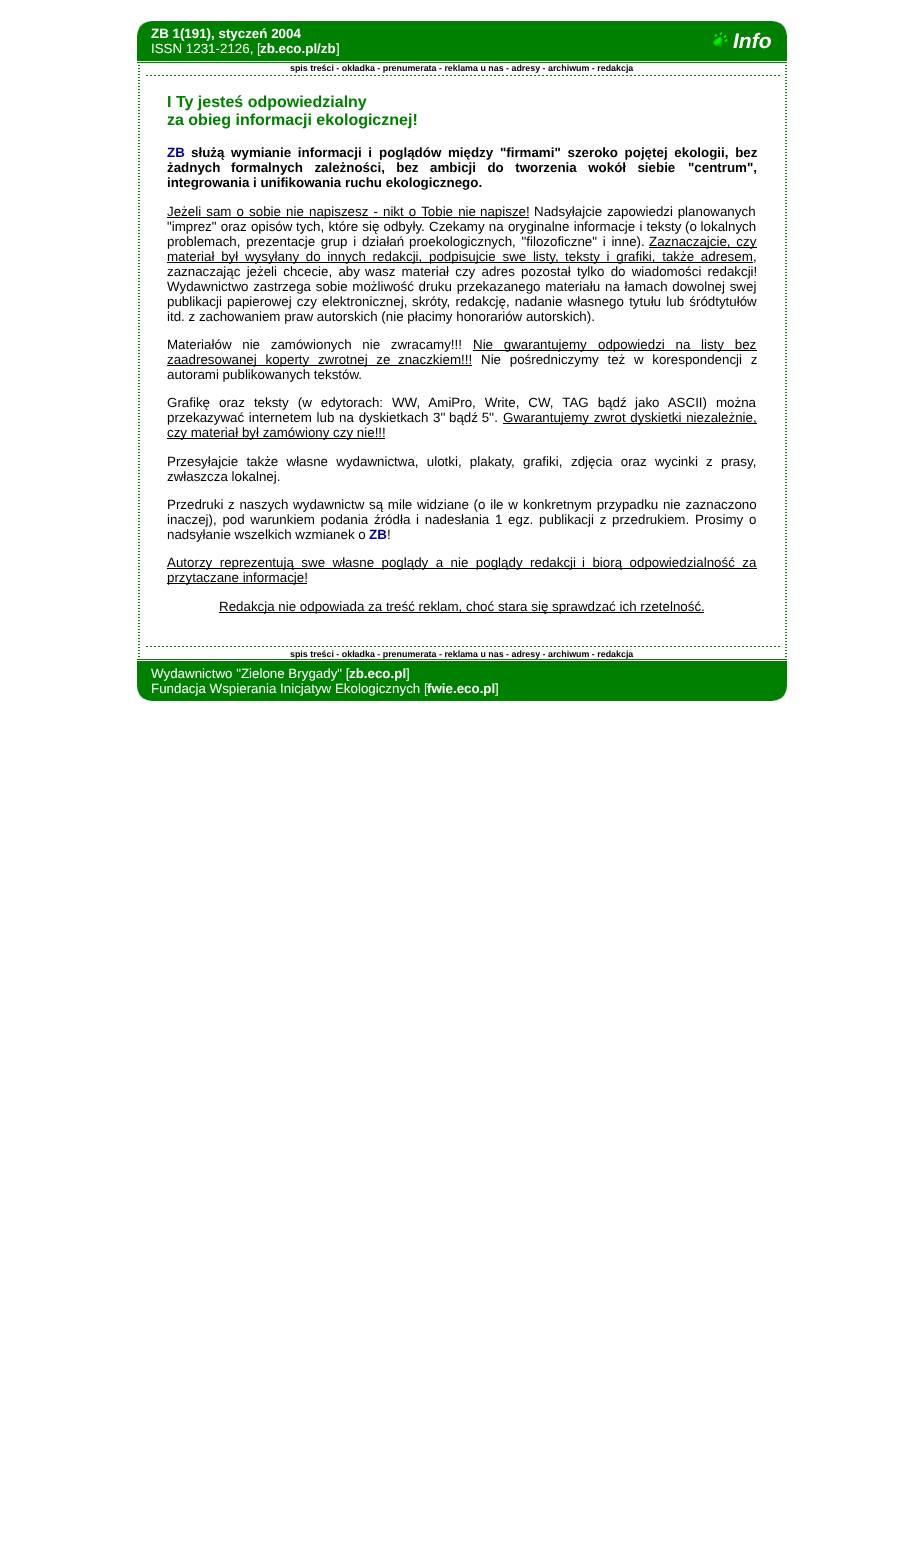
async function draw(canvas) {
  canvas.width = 923
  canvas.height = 1554
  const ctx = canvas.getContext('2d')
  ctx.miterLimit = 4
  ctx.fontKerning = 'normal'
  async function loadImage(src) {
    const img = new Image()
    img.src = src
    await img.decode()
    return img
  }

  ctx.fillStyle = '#fff'
  ctx.fillRect(0, 0, 923, 1554)
  ctx.fillStyle = '#008000'
  ctx.fillRect(137, 21, 650, 40)
  ctx.drawImage(await loadImage('image0.png'), 137, 21, 14, 14)
  ctx.font = 'bold 13.35px Liberation Sans'
  ctx.fillStyle = '#fff'
  ctx.fillText('ZB 1(191), styczeń 2004', 151, 38)
  ctx.font = '13.35px Liberation Sans'
  ctx.fillText('ISSN 1231-2126, [', 151, 53)
  ctx.font = 'bold 13.35px Liberation Sans'
  ctx.fillText('zb.eco.pl/zb', 260, 53)
  ctx.font = '13.35px Liberation Sans'
  ctx.fillText(']', 336, 53)
  ctx.drawImage(await loadImage('image1.png'), 713, 32, 15, 15)
  ctx.font = 'italic bold 21px Liberation Sans'
  ctx.fillText('Info', 733, 48)
  ctx.drawImage(await loadImage('image2.png'), 773, 21, 14, 14)
  ctx.fillStyle = '#008000'
  ctx.fillRect(137, 62, 650, 1)
  ctx.drawImage(await loadImage('image3.png'), 138, 65, 2, 592)
  ctx.font = 'bold 8.9px Liberation Sans'
  ctx.fillStyle = '#000'
  ctx.fillText('spis treści - okładka - prenumerata - reklama u nas - adresy - archiwum - redakcja', 290, 71)
  ctx.drawImage(await loadImage('image4.png'), 146, 75, 634, 1)
  ctx.font = 'bold 16px Liberation Sans'
  ctx.fillStyle = '#008000'
  ctx.fillText('I Ty jesteś odpowiedzialny', 167, 107)
  ctx.fillText('za obieg informacji ekologicznej!', 167, 125)
  ctx.font = 'bold 13.35px Liberation Sans'
  ctx.fillStyle = '#009'
  ctx.fillText('ZB', 167, 157)
  ctx.wordSpacing = '3px'
  ctx.fillStyle = '#000'
  ctx.fillText('służą wymianie informacji i', 191, 157)
  ctx.fillText('poglądów między "firmami" szeroko pojętej ekologii, bez', 379, 157)
  ctx.wordSpacing = '0px'
  ctx.fillText('żadnych', 167, 172)
  ctx.wordSpacing = '7.75px'
  ctx.fillText('formalnych zależności, bez ambicji do tworzenia wokół siebie', 231, 172)
  ctx.wordSpacing = '0px'
  ctx.fillText('"centrum",', 688, 172)
  ctx.fillText('integrowania i unifikowania ruchu ekologicznego.', 167, 187)
  ctx.fillRect(167, 217, 362, 1)
  ctx.wordSpacing = '1.4px'
  ctx.font = '13.35px Liberation Sans'
  ctx.fillText('Jeżeli sam o sobie nie napiszesz - nikt o Tobie nie', 167, 216)
  ctx.wordSpacing = '0px'
  ctx.fillText('napisze!', 480, 216)
  ctx.wordSpacing = '1px'
  ctx.fillText('Nadsyłajcie zapowiedzi planowanych', 534, 216)
  ctx.wordSpacing = '0.5px'
  ctx.fillText('"imprez" oraz opisów', 167, 231)
  ctx.fillText('tych, które się odbyły. Czekamy na oryginalne informacje i teksty', 296, 231)
  ctx.wordSpacing = '0px'
  ctx.fillText('(o lokalnych', 685, 231)
  ctx.wordSpacing = '2px'
  ctx.fillText('problemach, prezentacje grup i działań', 167, 246)
  ctx.fillText('proekologicznych, "filozoficzne" i inne).', 409, 246)
  ctx.fillRect(649, 247, 108, 1)
  ctx.fillText('Zaznaczajcie, czy', 649, 246)
  ctx.fillRect(167, 262, 586, 1)
  ctx.wordSpacing = '3px'
  ctx.fillText('materiał był wysyłany do innych redakcji, podpisujcie swe listy,', 167, 261)
  ctx.fillText('teksty i grafiki, także adresem', 565, 261)
  ctx.wordSpacing = '0px'
  ctx.fillText(',', 753, 261)
  ctx.wordSpacing = '2.5px'
  ctx.fillText('zaznaczając jeżeli chcecie, aby', 167, 276)
  ctx.fillText('wasz materiał czy adres pozostał tylko do wiadomości redakcji!', 365, 276)
  ctx.wordSpacing = '1px'
  ctx.fillText('Wydawnictwo zastrzega sobie możliwość druku przekazanego materiału', 167, 291)
  ctx.fillText('na łamach dowolnej swej', 605, 291)
  ctx.wordSpacing = '1.5px'
  ctx.fillText('publikacji papierowej czy elektronicznej,', 167, 306)
  ctx.fillText('skróty, redakcję, nadanie własnego tytułu lub śródtytułów', 412, 306)
  ctx.wordSpacing = '0px'
  ctx.fillText('itd. z zachowaniem praw autorskich (nie płacimy honorariów autorskich).', 167, 321)
  ctx.wordSpacing = '7px'
  ctx.fillText('Materiałów nie zamówionych nie zwracamy!!!', 167, 349)
  ctx.fillRect(473, 350, 284, 1)
  ctx.fillText('Nie gwarantujemy', 473, 349)
  ctx.fillText('odpowiedzi na listy bez', 598, 349)
  ctx.fillRect(167, 365, 305, 1)
  ctx.wordSpacing = '5px'
  ctx.fillText('zaadresowanej koperty zwrotnej ze', 167, 364)
  ctx.wordSpacing = '0px'
  ctx.fillText('znaczkiem!!!', 398, 364)
  ctx.wordSpacing = '5px'
  ctx.fillText('Nie pośredniczymy też w korespondencji z', 481, 364)
  ctx.wordSpacing = '0px'
  ctx.fillText('autorami publikowanych tekstów.', 167, 379)
  ctx.wordSpacing = '5.25px'
  ctx.fillText('Grafikę oraz teksty (w edytorach: WW, AmiPro, Write, CW, TAG bądź', 167, 407)
  ctx.fillText('jako ASCII) można', 635, 407)
  ctx.wordSpacing = '1px'
  ctx.fillText('przekazywać internetem lub na dyskietkach 3\'\'', 167, 422)
  ctx.wordSpacing = '0px'
  ctx.fillText('bądź 5\'\'.', 449, 422)
  ctx.fillRect(503, 423, 254, 1)
  ctx.wordSpacing = '1px'
  ctx.fillText('Gwarantujemy zwrot dyskietki niezależnie,', 503, 422)
  ctx.fillRect(167, 438, 218, 1)
  ctx.wordSpacing = '0px'
  ctx.fillText('czy materiał był zamówiony czy nie!!!', 167, 437)
  ctx.wordSpacing = '4.5px'
  ctx.fillText('Przesyłajcie także własne wydawnictwa, ulotki, plakaty, grafiki,', 167, 466)
  ctx.fillText('zdjęcia oraz wycinki z prasy,', 571, 466)
  ctx.wordSpacing = '0px'
  ctx.fillText('zwłaszcza lokalnej.', 167, 481)
  ctx.wordSpacing = '1px'
  ctx.fillText('Przedruki z naszych wydawnictw są mile widziane (o ile w', 167, 509)
  ctx.fillText('konkretnym przypadku nie zaznaczono', 523, 509)
  ctx.wordSpacing = '2px'
  ctx.fillText('inaczej), pod warunkiem podania', 167, 524)
  ctx.fillText('źródła i nadesłania 1 egz. publikacji z przedrukiem.', 374, 524)
  ctx.fillText('Prosimy o', 695, 524)
  ctx.wordSpacing = '0px'
  ctx.fillText('nadsyłanie wszelkich wzmianek o', 167, 539)
  ctx.font = 'bold 13.35px Liberation Sans'
  ctx.fillStyle = '#009'
  ctx.fillText('ZB', 369, 539)
  ctx.font = '13.35px Liberation Sans'
  ctx.fillStyle = '#000'
  ctx.fillText('!', 387, 539)
  ctx.fillRect(167, 568, 590, 1)
  ctx.wordSpacing = '3.75px'
  ctx.fillText('Autorzy reprezentują swe własne poglądy a nie poglądy redakcji', 167, 567)
  ctx.fillText('i biorą odpowiedzialność za', 582, 567)
  ctx.fillRect(167, 583, 140, 1)
  ctx.wordSpacing = '0px'
  ctx.fillText('przytaczane informacje!', 167, 582)
  ctx.fillRect(219, 612, 485, 1)
  ctx.fillText('Redakcja nie odpowiada za treść reklam, choć stara się sprawdzać ich rzetelność.', 219, 611)
  ctx.drawImage(await loadImage('image4.png'), 146, 646, 634, 1)
  ctx.font = 'bold 8.9px Liberation Sans'
  ctx.fillText('spis treści - okładka - prenumerata - reklama u nas - adresy - archiwum - redakcja', 290, 657)
  ctx.drawImage(await loadImage('image3.png'), 785, 65, 2, 592)
  ctx.fillStyle = '#008000'
  ctx.fillRect(137, 659, 650, 1)
  ctx.fillRect(137, 661, 650, 40)
  ctx.drawImage(await loadImage('image5.png'), 137, 687, 14, 14)
  ctx.font = '13.35px Liberation Sans'
  ctx.fillStyle = '#fff'
  ctx.fillText('Wydawnictwo "Zielone Brygady" [', 151, 678)
  ctx.font = 'bold 13.35px Liberation Sans'
  ctx.fillText('zb.eco.pl', 349, 678)
  ctx.font = '13.35px Liberation Sans'
  ctx.fillText(']', 406, 678)
  ctx.fillText('Fundacja Wspierania Inicjatyw Ekologicznych [', 151, 693)
  ctx.font = 'bold 13.35px Liberation Sans'
  ctx.fillText('fwie.eco.pl', 427, 693)
  ctx.font = '13.35px Liberation Sans'
  ctx.fillText(']', 495, 693)
  ctx.drawImage(await loadImage('image6.png'), 773, 687, 14, 14)
}

draw(document.querySelector('canvas'))
